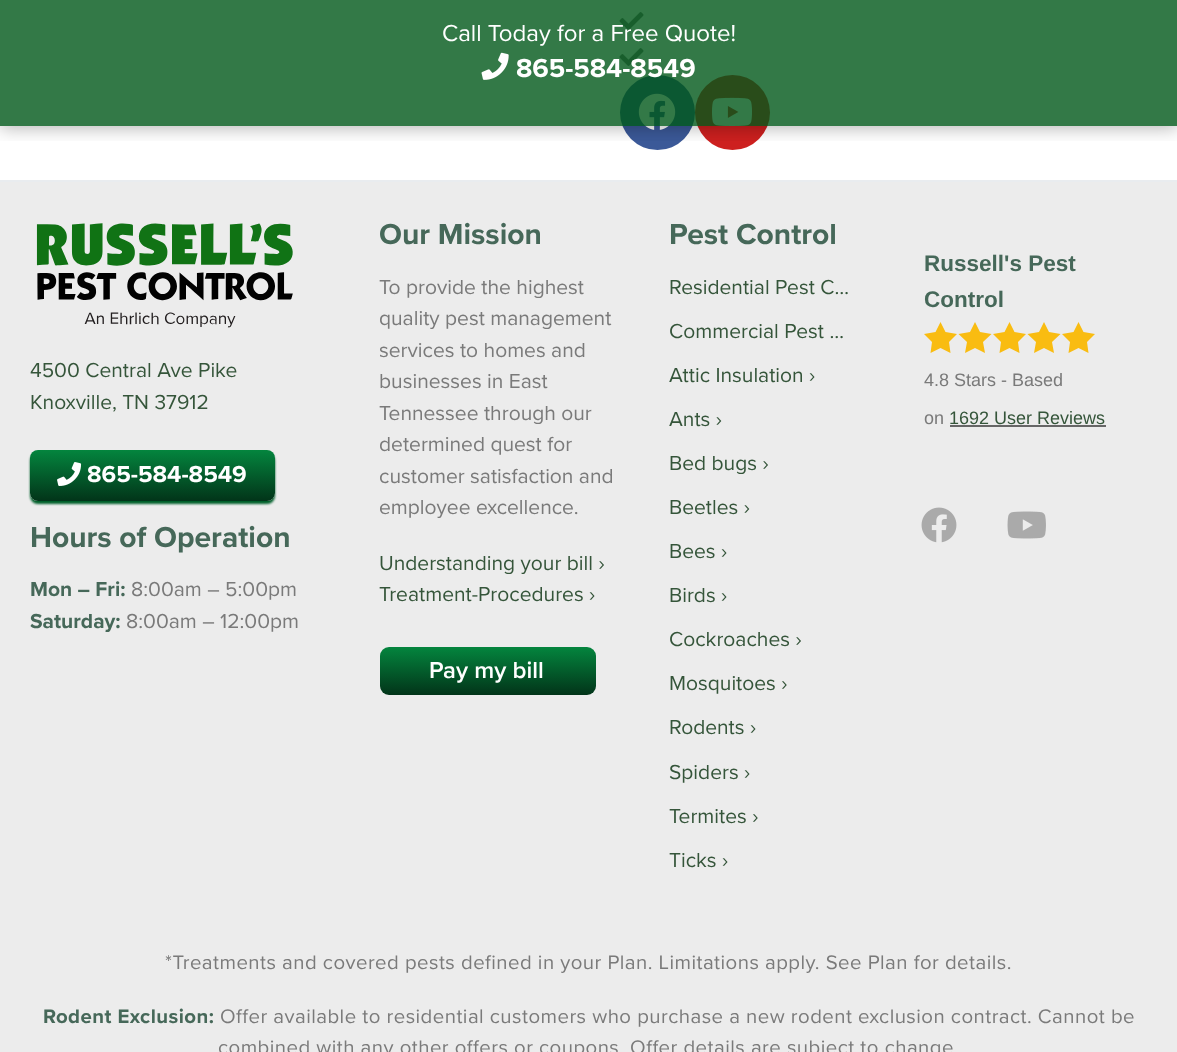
async function draw(canvas) {
  canvas.width = 1177
  canvas.height = 1052
  const ctx = canvas.getContext('2d')
  ctx.miterLimit = 4
  ctx.fontKerning = 'normal'
  async function loadImage(src) {
    const img = new Image()
    img.src = src
    await img.decode()
    return img
  }
  let gradient

  ctx.fillStyle = '#fff'
  ctx.fillRect(0, 0, 1177, 1052)
  ctx.drawImage(await loadImage('image0.png'), 619, 12, 25, 18)
  ctx.drawImage(await loadImage('image0.png'), 619, 48, 25, 18)
  ctx.fillStyle = '#3b5998'
  ctx.beginPath()
  ctx.arc(657.5, 112.5, 37.5, 0, 2 * Math.PI)
  ctx.fill()
  ctx.drawImage(await loadImage('image1.png'), 638, 93, 38, 37)
  ctx.fillStyle = '#cd201f'
  ctx.beginPath()
  ctx.arc(732.5, 112.5, 37.5, 0, 2 * Math.PI)
  ctx.fill()
  ctx.drawImage(await loadImage('image2.png'), 712, 97, 40, 29)
  ctx.save()
  ctx.beginPath()
  ctx.rect(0, 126, 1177, 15)
  ctx.clip()
  ctx.fillStyle = '#0000004a'
  ctx.filter = 'blur(9px)'
  ctx.beginPath()
  ctx.rect(0, 2, 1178, 126)
  ctx.fill()
  ctx.filter = 'none'
  ctx.restore()
  ctx.fillStyle = '#005719cc'
  ctx.fillRect(0, 0, 1177, 126)
  ctx.font = '24px Proxima Nova'
  ctx.fillStyle = '#fff'
  ctx.fillText('Call Today for a Free Quote!', 442, 41)
  ctx.drawImage(await loadImage('image3.png'), 481, 52, 28, 28)
  ctx.font = 'bold 27px Proxima Nova'
  ctx.fillText('865-584-8549', 516, 77)
  ctx.fillStyle = '#ececec'
  ctx.fillRect(0, 182, 1177, 870)
  ctx.fillStyle = '#e9ecef'
  ctx.fillRect(0, 180, 1177, 2)
  ctx.save()
  ctx.beginPath()
  ctx.rect(380, 218, 244, 417)
  ctx.clip()
  ctx.font = 'bold 30px Proxima Nova'
  ctx.fillStyle = '#466859'
  ctx.fillText('Our Mission', 379, 244)
  ctx.restore()
  ctx.font = '21px Proxima Nova'
  ctx.fillStyle = '#7a7a7a'
  ctx.fillText('To provide the highest', 379, 294)
  ctx.save()
  ctx.beginPath()
  ctx.rect(380, 218, 244, 417)
  ctx.clip()
  ctx.fillText('quality pest management', 379, 325)
  ctx.fillText('services to homes and', 379, 357)
  ctx.restore()
  ctx.fillText('businesses in East', 379, 388)
  ctx.fillText('Tennessee through our', 379, 420)
  ctx.save()
  ctx.beginPath()
  ctx.rect(380, 218, 244, 417)
  ctx.clip()
  ctx.fillText('determined quest for', 379, 451)
  ctx.fillText('customer satisfaction and', 379, 483)
  ctx.fillText('employee excellence.', 379, 514)
  ctx.restore()
  ctx.fillStyle = '#35553a'
  ctx.fillText('Understanding your bill ›', 379, 570)
  ctx.fillText('Treatment-Procedures ›', 379, 601)
  gradient = ctx.createLinearGradient(488, 695, 488, 647)
  gradient.addColorStop(0, '#023419')
  gradient.addColorStop(1, '#04853e')
  ctx.fillStyle = gradient
  ctx.beginPath()
  ctx.roundRect(380, 647, 216, 48, 9)
  ctx.fill()
  ctx.font = '600 24px Proxima Nova'
  ctx.fillStyle = '#fff'
  ctx.fillText('Pay my bill', 429, 678)
  ctx.font = 'bold 30px Proxima Nova'
  ctx.fillStyle = '#466859'
  ctx.fillText('Pest Control', 669, 244)
  ctx.font = '21px Proxima Nova'
  ctx.fillStyle = '#35553a'
  ctx.fillText('Residential Pest C…', 669, 294)
  ctx.fillText('Commercial Pest …', 669, 338)
  ctx.fillText('Attic Insulation ›', 669, 382)
  ctx.fillText('Ants ›', 669, 426)
  ctx.fillText('Bed bugs ›', 669, 470)
  ctx.fillText('Beetles ›', 669, 514)
  ctx.fillText('Bees ›', 669, 558)
  ctx.fillText('Birds ›', 669, 602)
  ctx.fillText('Cockroaches ›', 669, 646)
  ctx.fillText('Mosquitoes ›', 669, 690)
  ctx.fillText('Rodents ›', 669, 734)
  ctx.fillText('Spiders ›', 669, 779)
  ctx.fillText('Termites ›', 669, 823)
  ctx.fillText('Ticks ›', 669, 867)
  ctx.font = 'bold 22.5px Liberation Sans'
  ctx.fillStyle = '#466859'
  ctx.fillText('Russell\'s Pest', 924, 271)
  ctx.fillText('Control', 924, 307)
  ctx.fillStyle = '#f9bc11'
  ctx.beginPath()
  ctx.moveTo(957, 334)
  ctx.lineTo(945.5, 332)
  ctx.lineTo(940.5, 322)
  ctx.lineTo(935.5, 332)
  ctx.lineTo(924, 334)
  ctx.lineTo(932, 342)
  ctx.lineTo(930.5, 353)
  ctx.lineTo(940.5, 348)
  ctx.lineTo(950.5, 353)
  ctx.lineTo(949, 342)
  ctx.closePath()
  ctx.fill()
  ctx.beginPath()
  ctx.moveTo(991.5, 334)
  ctx.lineTo(980, 332)
  ctx.lineTo(975, 322)
  ctx.lineTo(970, 332)
  ctx.lineTo(958.5, 334)
  ctx.lineTo(967, 342)
  ctx.lineTo(965, 353)
  ctx.lineTo(975, 348)
  ctx.lineTo(985, 353)
  ctx.lineTo(983, 342)
  ctx.closePath()
  ctx.fill()
  ctx.beginPath()
  ctx.moveTo(1026, 334)
  ctx.lineTo(1014.5, 332)
  ctx.lineTo(1009.5, 322)
  ctx.lineTo(1004.5, 332)
  ctx.lineTo(993, 334)
  ctx.lineTo(1001, 342)
  ctx.lineTo(999.5, 353)
  ctx.lineTo(1009.5, 348)
  ctx.lineTo(1019.5, 353)
  ctx.lineTo(1018, 342)
  ctx.closePath()
  ctx.fill()
  ctx.beginPath()
  ctx.moveTo(1060.5, 334)
  ctx.lineTo(1049, 332)
  ctx.lineTo(1044, 322)
  ctx.lineTo(1039, 332)
  ctx.lineTo(1027.5, 334)
  ctx.lineTo(1036, 342)
  ctx.lineTo(1034, 353)
  ctx.lineTo(1044, 348)
  ctx.lineTo(1054, 353)
  ctx.lineTo(1052, 342)
  ctx.closePath()
  ctx.fill()
  ctx.beginPath()
  ctx.moveTo(1095, 334)
  ctx.lineTo(1083.5, 332)
  ctx.lineTo(1078.5, 322)
  ctx.lineTo(1073.5, 332)
  ctx.lineTo(1062, 334)
  ctx.lineTo(1070, 342)
  ctx.lineTo(1068.5, 353)
  ctx.lineTo(1078.5, 348)
  ctx.lineTo(1088.5, 353)
  ctx.lineTo(1087, 342)
  ctx.closePath()
  ctx.fill()
  ctx.font = '18px Liberation Sans'
  ctx.fillStyle = '#7a7a7a'
  ctx.fillText('4.8 Stars - Based', 924, 386)
  ctx.fillText('on', 924, 424)
  ctx.fillStyle = '#35553a'
  ctx.fillText('1692 User Reviews', 949, 424)
  ctx.fillStyle = '#666'
  ctx.fillRect(950, 425, 156, 2)
  ctx.drawImage(await loadImage('image4.png'), 921, 507, 36, 36)
  ctx.drawImage(await loadImage('image5.png'), 1007, 511, 39, 28)
  ctx.drawImage(await loadImage('image6.png'), 36, 223, 257, 105)
  ctx.font = '21px Proxima Nova'
  ctx.fillStyle = '#35553a'
  ctx.fillText('4500 Central Ave Pike', 30, 377)
  ctx.fillText('Knoxville, TN 37912', 30, 409)
  ctx.save()
  ctx.beginPath()
  ctx.moveTo(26, 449)
  ctx.lineTo(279, 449)
  ctx.lineTo(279, 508)
  ctx.lineTo(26, 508)
  ctx.closePath()
  ctx.moveTo(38, 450)
  ctx.lineTo(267, 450)
  ctx.bezierCurveTo(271.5, 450, 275, 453.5, 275, 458)
  ctx.lineTo(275, 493)
  ctx.bezierCurveTo(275, 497.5, 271.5, 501, 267, 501)
  ctx.lineTo(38, 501)
  ctx.bezierCurveTo(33.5, 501, 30, 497.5, 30, 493)
  ctx.lineTo(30, 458)
  ctx.bezierCurveTo(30, 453.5, 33.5, 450, 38, 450)
  ctx.closePath()
  ctx.clip('evenodd')
  ctx.fillStyle = '#01602b'
  ctx.filter = 'blur(1px)'
  ctx.beginPath()
  ctx.roundRect(30, 453, 245, 51, 8)
  ctx.fill()
  ctx.filter = 'none'
  ctx.restore()
  gradient = ctx.createLinearGradient(152, 501, 152, 450)
  gradient.addColorStop(0, '#023419')
  gradient.addColorStop(1, '#04853e')
  ctx.fillStyle = gradient
  ctx.beginPath()
  ctx.roundRect(30, 450, 245, 51, 8)
  ctx.fill()
  ctx.drawImage(await loadImage('image7.png'), 57, 462, 25, 24)
  ctx.font = 'bold 24px Proxima Nova'
  ctx.fillStyle = '#fff'
  ctx.fillText('865-584-8549', 87, 482)
  ctx.font = 'bold 30px Proxima Nova'
  ctx.fillStyle = '#466859'
  ctx.fillText('Hours of Operation', 30, 547)
  ctx.font = 'bold 21px Proxima Nova'
  ctx.fillText('Mon – Fri:', 30, 596)
  ctx.font = '21px Proxima Nova'
  ctx.fillStyle = '#7a7a7a'
  ctx.fillText('8:00am – 5:00pm', 131, 596)
  ctx.font = 'bold 21px Proxima Nova'
  ctx.fillStyle = '#466859'
  ctx.fillText('Saturday:', 30, 628)
  ctx.font = '21px Proxima Nova'
  ctx.fillStyle = '#7a7a7a'
  ctx.fillText('8:00am – 12:00pm', 126, 628)
  ctx.letterSpacing = '0.45px'
  ctx.font = '20.4px Proxima Nova'
  ctx.fillText('*Treatments and covered pests defined in your Plan. Limitations apply. See Plan for details.', 165, 969)
  ctx.font = 'bold 20.4px Proxima Nova'
  ctx.fillStyle = '#466859'
  ctx.fillText('Rodent Exclusion:', 43, 1023)
  ctx.font = '20.4px Proxima Nova'
  ctx.fillStyle = '#7a7a7a'
  ctx.fillText('Offer available to residential customers who purchase a new rodent exclusion contract. Cannot be', 220, 1023)
  ctx.fillText('combined with any other offers or coupons. Offer details are subject to change', 218, 1054)
}

draw(document.querySelector('canvas'))
